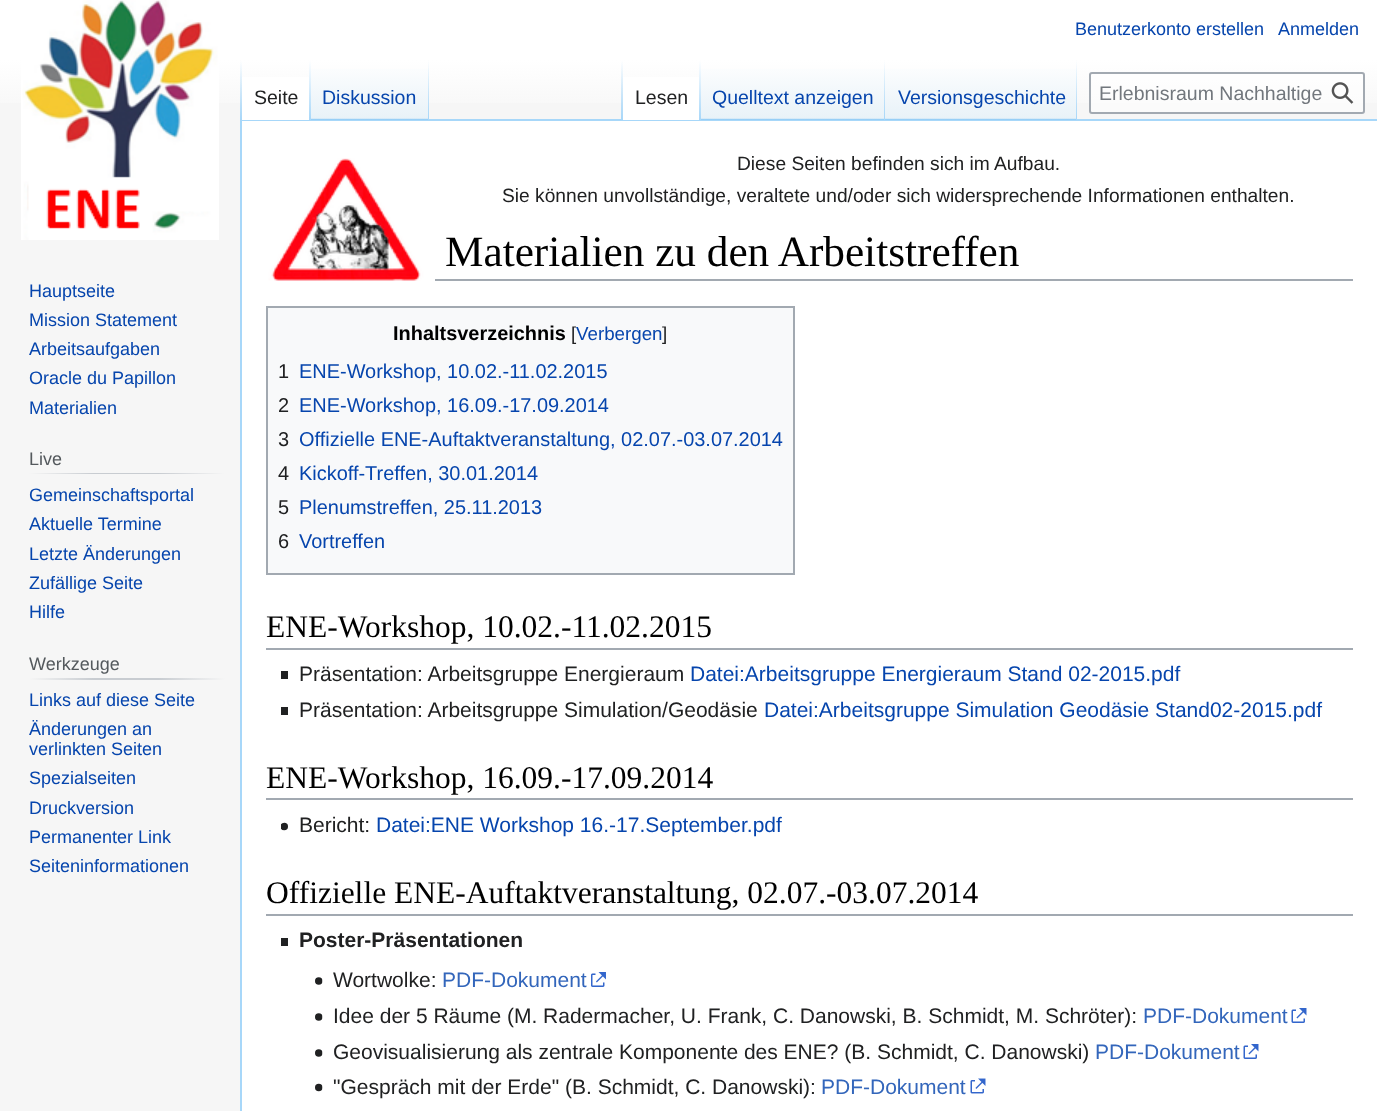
async function draw(canvas) {
  canvas.width = 1377
  canvas.height = 1111
  const ctx = canvas.getContext('2d')
  ctx.miterLimit = 4
  ctx.fontKerning = 'normal'
  async function loadImage(src) {
    const img = new Image()
    img.src = src
    await img.decode()
    return img
  }
  let gradient

  ctx.fillStyle = '#f6f6f6'
  ctx.fillRect(0, 0, 1377, 1111)
  gradient = ctx.createLinearGradient(689, 0, 689, 120)
  gradient.addColorStop(0.5, '#fff')
  gradient.addColorStop(1, '#f6f6f6')
  ctx.fillStyle = gradient
  ctx.fillRect(0, 0, 1377, 103)
  ctx.font = '18px Liberation Sans'
  ctx.fillStyle = '#0645ad'
  ctx.fillText('Benutzerkonto erstellen', 1075, 35)
  ctx.fillText('Anmelden', 1278, 35)
  ctx.fillStyle = '#a7d7f9'
  ctx.fillRect(240, 119, 1137, 2)
  ctx.fillRect(240, 119, 2, 992)
  gradient = ctx.createLinearGradient(241, 60, 241, 120)
  gradient.addColorStop(0, '#a7d7f900')
  gradient.addColorStop(1, '#a7d7f9')
  ctx.fillStyle = gradient
  ctx.fillRect(240, 60, 2, 60)
  ctx.fillStyle = '#fff'
  ctx.fillRect(242, 77, 67, 43)
  gradient = ctx.createLinearGradient(310, 60, 310, 120)
  gradient.addColorStop(0, '#fff')
  gradient.addColorStop(1, '#a7d7f9')
  ctx.fillStyle = gradient
  ctx.fillRect(309, 60, 2, 60)
  ctx.font = '19.5px Liberation Sans'
  ctx.fillStyle = '#202122'
  ctx.fillText('Seite', 254, 104)
  gradient = ctx.createLinearGradient(370, 120, 370, 60)
  gradient.addColorStop(0, '#77c1f6')
  gradient.addColorStop(0.03, '#e8f2f8')
  gradient.addColorStop(1, '#fff')
  ctx.fillStyle = gradient
  ctx.fillRect(311, 69, 118, 51)
  gradient = ctx.createLinearGradient(428, 60, 428, 120)
  gradient.addColorStop(0, '#a7d7f900')
  gradient.addColorStop(1, '#a7d7f9')
  ctx.fillStyle = gradient
  ctx.fillRect(428, 60, 1, 60)
  ctx.fillStyle = '#0645ad'
  ctx.fillText('Diskussion', 322, 104)
  gradient = ctx.createLinearGradient(622, 60, 622, 120)
  gradient.addColorStop(0, '#a7d7f900')
  gradient.addColorStop(1, '#a7d7f9')
  ctx.fillStyle = gradient
  ctx.fillRect(621, 60, 2, 60)
  ctx.fillStyle = '#fff'
  ctx.fillRect(623, 77, 76, 43)
  gradient = ctx.createLinearGradient(700, 60, 700, 120)
  gradient.addColorStop(0, '#fff')
  gradient.addColorStop(1, '#a7d7f9')
  ctx.fillStyle = gradient
  ctx.fillRect(699, 60, 2, 60)
  ctx.fillStyle = '#202122'
  ctx.fillText('Lesen', 635, 104)
  gradient = ctx.createLinearGradient(793, 120, 793, 60)
  gradient.addColorStop(0, '#77c1f6')
  gradient.addColorStop(0.03, '#e8f2f8')
  gradient.addColorStop(1, '#fff')
  ctx.fillStyle = gradient
  ctx.fillRect(701, 69, 184, 51)
  gradient = ctx.createLinearGradient(884, 60, 884, 120)
  gradient.addColorStop(0, '#a7d7f900')
  gradient.addColorStop(1, '#a7d7f9')
  ctx.fillStyle = gradient
  ctx.fillRect(884, 60, 1, 60)
  ctx.fillStyle = '#0645ad'
  ctx.fillText('Quelltext anzeigen', 712, 104)
  gradient = ctx.createLinearGradient(981, 120, 981, 60)
  gradient.addColorStop(0, '#77c1f6')
  gradient.addColorStop(0.03, '#e8f2f8')
  gradient.addColorStop(1, '#fff')
  ctx.fillStyle = gradient
  ctx.fillRect(885, 69, 192, 51)
  gradient = ctx.createLinearGradient(1076, 60, 1076, 120)
  gradient.addColorStop(0, '#a7d7f900')
  gradient.addColorStop(1, '#a7d7f9')
  ctx.fillStyle = gradient
  ctx.fillRect(1076, 60, 1, 60)
  ctx.fillStyle = '#0645ad'
  ctx.fillText('Versionsgeschichte', 898, 104)
  ctx.fillStyle = '#ffffff80'
  ctx.beginPath()
  ctx.roundRect(1090, 73, 274, 40, 2)
  ctx.fill()
  ctx.strokeStyle = '#a2a9b1'
  ctx.lineWidth = 2
  ctx.stroke()
  ctx.fillStyle = '#72777d'
  ctx.fillText('Erlebnisraum Nachhaltige', 1099, 100)
  ctx.drawImage(await loadImage('image0.png'), 1331, 82, 23, 22)
  ctx.drawImage(await loadImage('image1.png'), 21, 0, 198, 240)
  ctx.font = '18px Liberation Sans'
  ctx.fillStyle = '#0645ad'
  ctx.fillText('Hauptseite', 29, 297)
  ctx.fillText('Mission Statement', 29, 326)
  ctx.fillText('Arbeitsaufgaben', 29, 355)
  ctx.fillText('Oracle du Papillon', 29, 384)
  ctx.fillText('Materialien', 29, 414)
  gradient = ctx.createLinearGradient(29, 473, 225, 473)
  gradient.addColorStop(0, '#f6f6f6')
  gradient.addColorStop(0.33, '#c8ccd1')
  gradient.addColorStop(0.66, '#c8ccd1')
  gradient.addColorStop(1, '#f6f6f6')
  ctx.fillStyle = gradient
  ctx.fillRect(29, 473, 196, 1)
  ctx.fillStyle = '#54595d'
  ctx.fillText('Live', 29, 465)
  ctx.fillStyle = '#0645ad'
  ctx.fillText('Gemeinschaftsportal', 29, 501)
  ctx.fillText('Aktuelle Termine', 29, 530)
  ctx.fillText('Letzte Änderungen', 29, 560)
  ctx.fillText('Zufällige Seite', 29, 589)
  ctx.fillText('Hilfe', 29, 618)
  gradient = ctx.createLinearGradient(29, 679, 225, 679)
  gradient.addColorStop(0, '#f6f6f6')
  gradient.addColorStop(0.33, '#c8ccd1')
  gradient.addColorStop(0.66, '#c8ccd1')
  gradient.addColorStop(1, '#f6f6f6')
  ctx.fillStyle = gradient
  ctx.fillRect(29, 678, 196, 2)
  ctx.fillStyle = '#54595d'
  ctx.fillText('Werkzeuge', 29, 670)
  ctx.fillStyle = '#0645ad'
  ctx.fillText('Links auf diese Seite', 29, 706)
  ctx.fillText('Änderungen an', 29, 735)
  ctx.fillText('verlinkten Seiten', 29, 755)
  ctx.fillText('Spezialseiten', 29, 784)
  ctx.fillText('Druckversion', 29, 814)
  ctx.fillText('Permanenter Link', 29, 843)
  ctx.fillText('Seiteninformationen', 29, 872)
  ctx.fillStyle = '#fff'
  ctx.fillRect(242, 121, 1135, 990)
  ctx.drawImage(await loadImage('image2.png'), 266, 158, 169, 123)
  ctx.font = '19.2px Liberation Sans'
  ctx.fillStyle = '#202122'
  ctx.fillText('Diese Seiten befinden sich im Aufbau.', 737, 170)
  ctx.fillText('Sie können unvollständige, veraltete und/oder sich widersprechende Informationen enthalten.', 502, 202)
  ctx.fillStyle = '#a2a9b1'
  ctx.fillRect(435, 279, 918, 2)
  ctx.font = '43.25px Liberation Serif'
  ctx.fillStyle = '#000'
  ctx.fillText('Materialien zu den Arbeitstreffen', 445, 266)
  ctx.fillStyle = '#f8f9fa'
  ctx.beginPath()
  ctx.rect(267, 307, 527, 267)
  ctx.fill()
  ctx.stroke()
  ctx.font = 'bold 19.95px Liberation Sans'
  ctx.fillStyle = '#000'
  ctx.fillText('Inhaltsverzeichnis', 393, 340)
  ctx.font = '18.75px Liberation Sans'
  ctx.fillStyle = '#202122'
  ctx.fillText('[', 571, 340)
  ctx.fillStyle = '#0645ad'
  ctx.fillText('Verbergen', 576, 340)
  ctx.fillStyle = '#202122'
  ctx.fillText(']', 662, 340)
  ctx.font = '19.95px Liberation Sans'
  ctx.fillText('1', 278, 378)
  ctx.fillStyle = '#0645ad'
  ctx.fillText('ENE-Workshop, 10.02.-11.02.2015', 299, 378)
  ctx.fillStyle = '#202122'
  ctx.fillText('2', 278, 412)
  ctx.fillStyle = '#0645ad'
  ctx.fillText('ENE-Workshop, 16.09.-17.09.2014', 299, 412)
  ctx.fillStyle = '#202122'
  ctx.fillText('3', 278, 446)
  ctx.fillStyle = '#0645ad'
  ctx.fillText('Offizielle ENE-Auftaktveranstaltung, 02.07.-03.07.2014', 299, 446)
  ctx.fillStyle = '#202122'
  ctx.fillText('4', 278, 480)
  ctx.fillStyle = '#0645ad'
  ctx.fillText('Kickoff-Treffen, 30.01.2014', 299, 480)
  ctx.fillStyle = '#202122'
  ctx.fillText('5', 278, 514)
  ctx.fillStyle = '#0645ad'
  ctx.fillText('Plenumstreffen, 25.11.2013', 299, 514)
  ctx.fillStyle = '#202122'
  ctx.fillText('6', 278, 548)
  ctx.fillStyle = '#0645ad'
  ctx.fillText('Vortreffen', 299, 548)
  ctx.fillStyle = '#a2a9b1'
  ctx.fillRect(266, 648, 1087, 2)
  ctx.font = '31.5px Liberation Serif'
  ctx.fillStyle = '#000'
  ctx.fillText('ENE-Workshop, 10.02.-11.02.2015', 266, 637)
  ctx.fillStyle = '#202122'
  ctx.fillRect(281, 671, 7, 8)
  ctx.font = '21px Liberation Sans'
  ctx.fillText('Präsentation: Arbeitsgruppe Energieraum', 299, 681)
  ctx.fillStyle = '#0645ad'
  ctx.fillText('Datei:Arbeitsgruppe Energieraum Stand 02-2015.pdf', 690, 681)
  ctx.fillStyle = '#202122'
  ctx.fillRect(281, 707, 7, 8)
  ctx.fillText('Präsentation: Arbeitsgruppe Simulation/Geodäsie', 299, 717)
  ctx.fillStyle = '#0645ad'
  ctx.fillText('Datei:Arbeitsgruppe Simulation Geodäsie Stand02-2015.pdf', 764, 717)
  ctx.fillStyle = '#a2a9b1'
  ctx.fillRect(266, 798, 1087, 2)
  ctx.font = '31.5px Liberation Serif'
  ctx.fillStyle = '#000'
  ctx.fillText('ENE-Workshop, 16.09.-17.09.2014', 266, 788)
  ctx.drawImage(await loadImage('image3.png'), 281, 822, 7, 9)
  ctx.font = '21px Liberation Sans'
  ctx.fillStyle = '#202122'
  ctx.fillText('Bericht:', 299, 832)
  ctx.fillStyle = '#0645ad'
  ctx.fillText('Datei:ENE Workshop 16.-17.September.pdf', 376, 832)
  ctx.fillStyle = '#a2a9b1'
  ctx.fillRect(266, 914, 1087, 2)
  ctx.font = '31.5px Liberation Serif'
  ctx.fillStyle = '#000'
  ctx.fillText('Offizielle ENE-Auftaktveranstaltung, 02.07.-03.07.2014', 266, 903)
  ctx.fillStyle = '#202122'
  ctx.fillRect(281, 938, 7, 8)
  ctx.font = 'bold 21px Liberation Sans'
  ctx.fillText('Poster-Präsentationen', 299, 947)
  ctx.drawImage(await loadImage('image4.png'), 315, 977, 8, 8)
  ctx.font = '21px Liberation Sans'
  ctx.fillText('Wortwolke:', 333, 987)
  ctx.fillStyle = '#36b'
  ctx.fillText('PDF-Dokument', 442, 987)
  ctx.drawImage(await loadImage('image5.png'), 591, 972, 15, 15)
  ctx.drawImage(await loadImage('image4.png'), 315, 1013, 8, 8)
  ctx.fillStyle = '#202122'
  ctx.fillText('Idee der 5 Räume (M. Radermacher, U. Frank, C. Danowski, B. Schmidt, M. Schröter):', 333, 1023)
  ctx.fillStyle = '#36b'
  ctx.fillText('PDF-Dokument', 1143, 1023)
  ctx.drawImage(await loadImage('image6.png'), 1291, 1008, 16, 15)
  ctx.drawImage(await loadImage('image4.png'), 315, 1049, 8, 8)
  ctx.fillStyle = '#202122'
  ctx.fillText('Geovisualisierung als zentrale Komponente des ENE? (B. Schmidt, C. Danowski)', 333, 1059)
  ctx.fillStyle = '#36b'
  ctx.fillText('PDF-Dokument', 1095, 1059)
  ctx.drawImage(await loadImage('image6.png'), 1243, 1044, 16, 15)
  ctx.drawImage(await loadImage('image7.png'), 315, 1083, 8, 9)
  ctx.fillStyle = '#202122'
  ctx.fillText('"Gespräch mit der Erde" (B. Schmidt, C. Danowski):', 333, 1094)
  ctx.fillStyle = '#36b'
  ctx.fillText('PDF-Dokument', 821, 1094)
  ctx.drawImage(await loadImage('image8.png'), 970, 1078, 16, 16)
}

draw(document.querySelector('canvas'))
